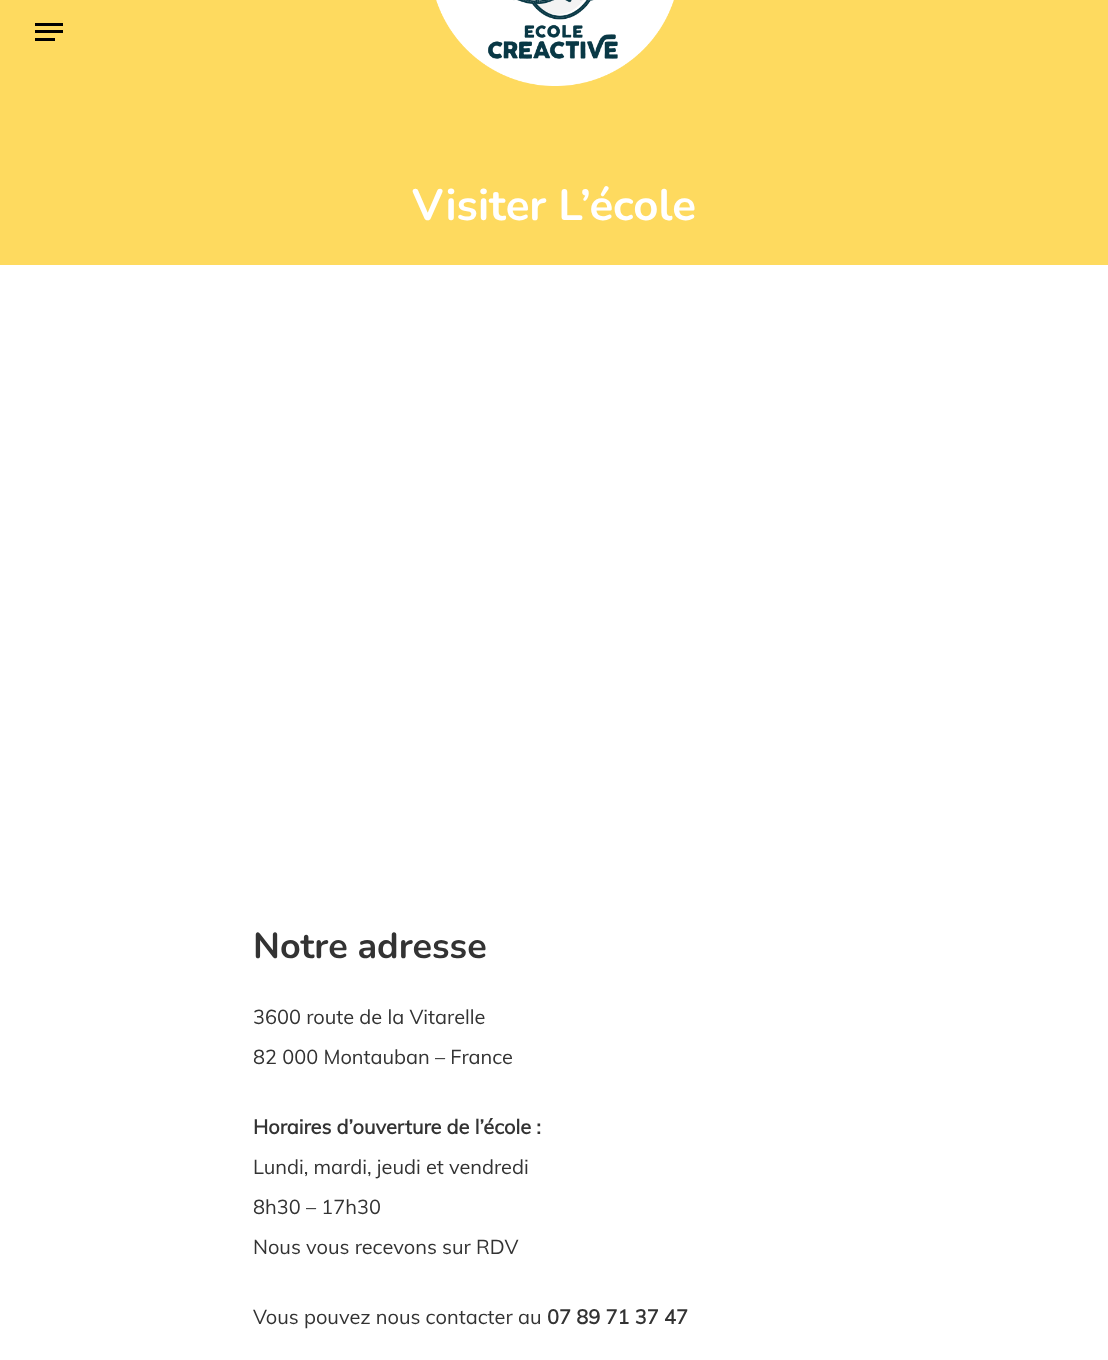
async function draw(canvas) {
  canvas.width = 1108
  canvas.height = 1360
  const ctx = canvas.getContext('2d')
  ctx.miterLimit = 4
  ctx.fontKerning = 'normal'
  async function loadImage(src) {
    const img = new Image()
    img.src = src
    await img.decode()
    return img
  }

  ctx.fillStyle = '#fff'
  ctx.fillRect(0, 0, 1108, 1360)
  ctx.fillStyle = '#feda5f'
  ctx.fillRect(0, 0, 1108, 265)
  ctx.fillStyle = '#000'
  ctx.fillRect(35, 23, 28, 3)
  ctx.fillRect(35, 38, 20, 3)
  ctx.fillRect(35, 30, 28, 3)
  ctx.drawImage(await loadImage('image0.png'), 436, 0, 238, 86)
  ctx.font = 'bold 43.75px Nunito'
  ctx.fillStyle = '#fff'
  ctx.fillText('Visiter L’école', 412, 220)
  ctx.font = 'bold 36px Nunito'
  ctx.fillStyle = '#333'
  ctx.fillText('Notre adresse', 253, 958)
  ctx.font = '20px Muli'
  ctx.fillText('3600 route de la Vitarelle', 253, 1024)
  ctx.fillText('82 000 Montauban – France', 253, 1064)
  ctx.font = 'bold 20px Muli'
  ctx.fillText('Horaires d’ouverture de l’école :', 253, 1134)
  ctx.font = '20px Muli'
  ctx.fillText('Lundi, mardi, jeudi et vendredi', 253, 1174)
  ctx.fillText('8h30 – 17h30', 253, 1214)
  ctx.fillText('Nous vous recevons sur RDV', 253, 1254)
  ctx.fillText('Vous pouvez nous contacter au', 253, 1324)
  ctx.font = 'bold 20px Muli'
  ctx.fillText('07 89 71 37 47', 547, 1324)
}

draw(document.querySelector('canvas'))
